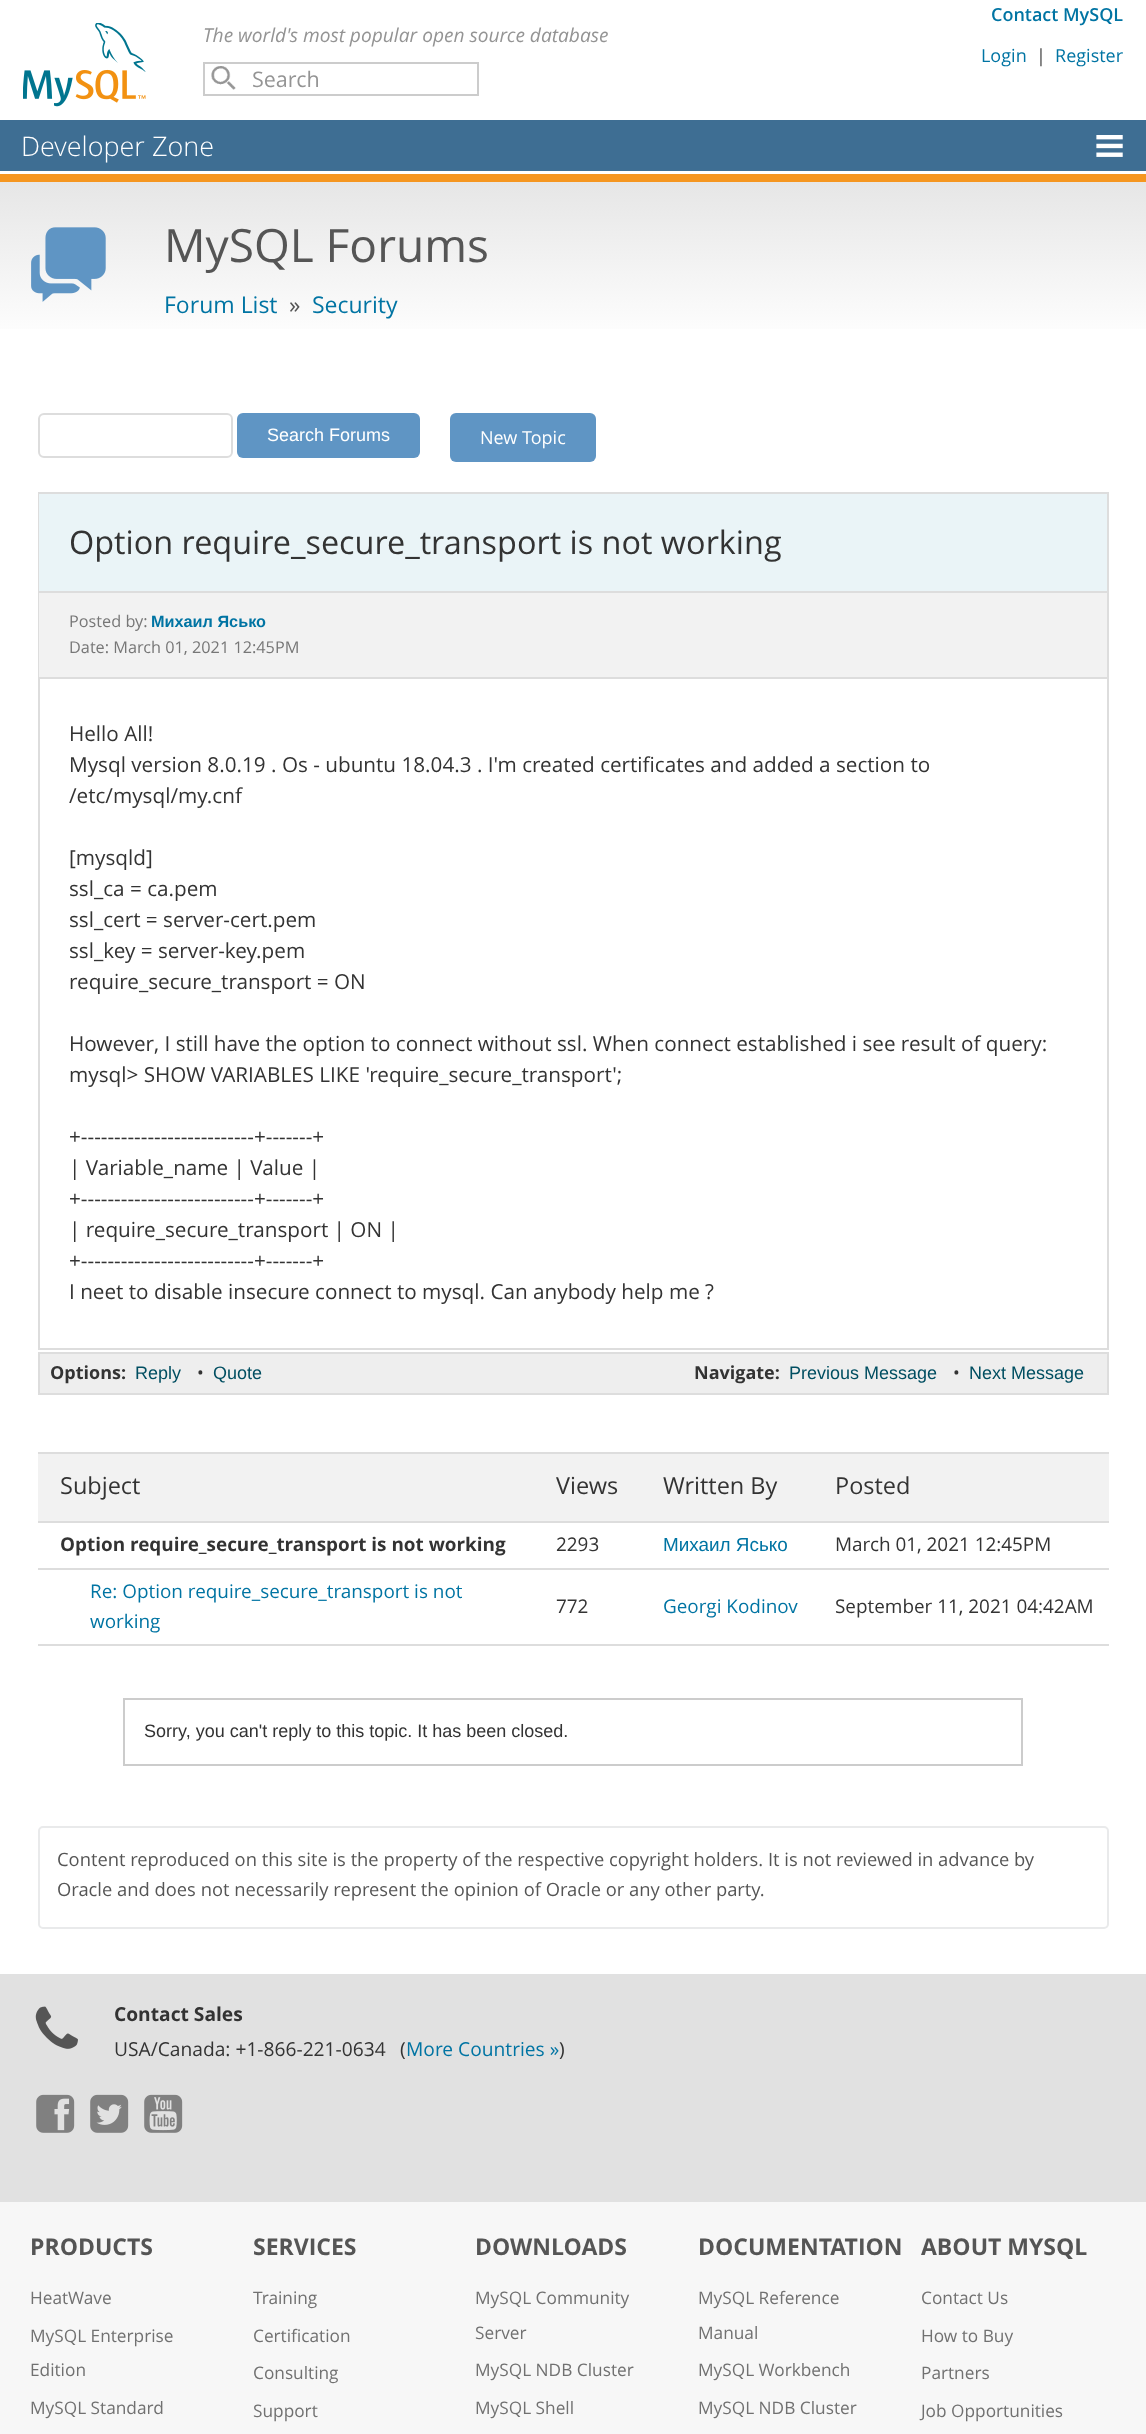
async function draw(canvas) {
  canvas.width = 1146
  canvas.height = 2434
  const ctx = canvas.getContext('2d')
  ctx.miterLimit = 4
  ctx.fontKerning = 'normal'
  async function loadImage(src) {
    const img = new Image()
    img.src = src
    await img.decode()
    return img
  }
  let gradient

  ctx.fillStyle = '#fff'
  ctx.fillRect(0, 0, 1146, 2434)
  ctx.drawImage(await loadImage('image0.png'), 23, 23, 123, 84)
  ctx.font = 'italic 19.2px Open Sans'
  ctx.fillStyle = '#949494'
  ctx.fillText('The world\'s most popular open source database', 203, 42)
  ctx.drawImage(await loadImage('image1.png'), 211, 66, 25, 24)
  ctx.strokeStyle = '#ccc'
  ctx.lineWidth = 2
  ctx.strokeRect(204, 63, 274, 32)
  ctx.font = '21.5px Open Sans'
  ctx.fillText('Search', 252, 87)
  ctx.font = '600 18px Open Sans'
  ctx.fillStyle = '#0074a3'
  ctx.fillText('Contact MySQL', 991, 21)
  ctx.font = '18px Open Sans'
  ctx.fillText('Login', 981, 62)
  ctx.fillStyle = '#444'
  ctx.fillText('|', 1036, 62)
  ctx.fillStyle = '#0074a3'
  ctx.fillText('Register', 1055, 62)
  ctx.fillStyle = '#3e6e93'
  ctx.fillRect(0, 120, 1146, 51)
  ctx.font = '300 27px Open Sans'
  ctx.fillStyle = '#fff'
  ctx.fillText('Developer Zone', 21, 156)
  ctx.drawImage(await loadImage('image2.png'), 1096, 135, 27, 22)
  ctx.fillStyle = '#f59620'
  ctx.fillRect(0, 174, 1146, 8)
  gradient = ctx.createLinearGradient(573, 181, 573, 345)
  gradient.addColorStop(0, '#e6e6e6')
  gradient.addColorStop(1, '#fff')
  ctx.fillStyle = gradient
  ctx.fillRect(0, 182, 1146, 147)
  ctx.drawImage(await loadImage('image3.png'), 31, 227, 75, 75)
  ctx.font = '46px Open Sans'
  ctx.fillStyle = '#555'
  ctx.fillText('MySQL Forums', 164, 262)
  ctx.font = '23px Open Sans'
  ctx.fillStyle = '#0074a3'
  ctx.fillText('Forum List', 164, 313)
  ctx.fillStyle = '#555'
  ctx.fillText('»', 289, 313)
  ctx.fillStyle = '#0074a3'
  ctx.fillText('Security', 312, 313)
  ctx.beginPath()
  ctx.roundRect(39, 414, 193, 43, 5)
  ctx.strokeStyle = '#ddd'
  ctx.stroke()
  ctx.fillStyle = '#5f95c4'
  ctx.beginPath()
  ctx.roundRect(237, 413, 183, 45, 6)
  ctx.fill()
  ctx.font = '18px Liberation Sans'
  ctx.fillStyle = '#fff'
  ctx.fillText('Search Forums', 267, 441)
  ctx.fillStyle = '#5f95c4'
  ctx.beginPath()
  ctx.roundRect(450, 413, 146, 49, 6)
  ctx.fill()
  ctx.font = '18px Open Sans'
  ctx.fillStyle = '#fff'
  ctx.fillText('New Topic', 480, 444)
  ctx.strokeRect(39, 493, 1069, 856)
  ctx.fillStyle = '#eaf4f7'
  ctx.fillRect(39, 494, 1068, 97)
  ctx.font = '32.4px Open Sans'
  ctx.fillStyle = '#333'
  ctx.fillText('Option require_secure_transport is not working', 69, 554)
  ctx.fillStyle = '#f2f2f2'
  ctx.fillRect(39, 593, 1068, 84)
  ctx.fillStyle = '#ddd'
  ctx.fillRect(39, 591, 1068, 2)
  ctx.fillRect(39, 677, 1068, 2)
  ctx.font = '16.25px Open Sans'
  ctx.fillStyle = '#777'
  ctx.fillText('Posted by:', 69, 627)
  ctx.font = 'bold 16.25px Liberation Sans'
  ctx.fillStyle = '#0074a3'
  ctx.fillText('Михаил Ясько', 151, 627)
  ctx.font = '16.25px Open Sans'
  ctx.fillStyle = '#777'
  ctx.fillText('Date: March 01, 2021 12:45PM', 69, 653)
  ctx.font = '20.7px Open Sans'
  ctx.fillStyle = '#333'
  ctx.fillText('Hello All!', 69, 741)
  ctx.fillText('Mysql version 8.0.19 . Os - ubuntu 18.04.3 . I\'m created certificates and added a section to', 69, 772)
  ctx.fillText('/etc/mysql/my.cnf', 69, 803)
  ctx.fillText('[mysqld]', 69, 865)
  ctx.fillText('ssl_ca = ca.pem', 69, 896)
  ctx.fillText('ssl_cert = server-cert.pem', 69, 927)
  ctx.fillText('ssl_key = server-key.pem', 69, 958)
  ctx.fillText('require_secure_transport = ON', 69, 989)
  ctx.fillText('However, I still have the option to connect without ssl. When connect established i see result of query:', 69, 1051)
  ctx.fillText('mysql> SHOW VARIABLES LIKE \'require_secure_transport\';', 69, 1082)
  ctx.fillText('+--------------------------+-------+', 69, 1144)
  ctx.fillText('| Variable_name | Value |', 69, 1175)
  ctx.fillText('+--------------------------+-------+', 69, 1206)
  ctx.fillText('| require_secure_transport | ON |', 69, 1237)
  ctx.fillText('+--------------------------+-------+', 69, 1268)
  ctx.fillText('I neet to disable insecure connect to mysql. Can anybody help me ?', 69, 1299)
  ctx.fillStyle = '#eee'
  ctx.beginPath()
  ctx.rect(39, 1353, 1069, 41)
  ctx.fill()
  ctx.stroke()
  ctx.font = 'bold 18px Open Sans'
  ctx.fillStyle = '#333'
  ctx.fillText('Options:', 50, 1379)
  ctx.font = '18px Liberation Sans'
  ctx.fillStyle = '#004e61'
  ctx.fillText('Reply', 135, 1379)
  ctx.font = '18px Open Sans'
  ctx.fillStyle = '#333'
  ctx.fillText('•', 197, 1379)
  ctx.font = '18px Liberation Sans'
  ctx.fillStyle = '#004e61'
  ctx.fillText('Quote', 213, 1379)
  ctx.font = 'bold 18px Open Sans'
  ctx.fillStyle = '#333'
  ctx.fillText('Navigate:', 694, 1379)
  ctx.font = '18px Liberation Sans'
  ctx.fillStyle = '#004e61'
  ctx.fillText('Previous Message', 789, 1379)
  ctx.font = '18px Open Sans'
  ctx.fillStyle = '#333'
  ctx.fillText('•', 953, 1379)
  ctx.font = '18px Liberation Sans'
  ctx.fillStyle = '#004e61'
  ctx.fillText('Next Message', 969, 1379)
  ctx.fillStyle = '#ddd'
  ctx.fillRect(38, 1644, 1071, 2)
  ctx.fillStyle = '#f2f2f2'
  ctx.fillRect(38, 1454, 1071, 67)
  ctx.fillStyle = '#ddd'
  ctx.fillRect(38, 1452, 1071, 2)
  ctx.font = '23.5px Open Sans'
  ctx.fillStyle = '#333'
  ctx.fillText('Subject', 60, 1494)
  ctx.fillText('Views', 556, 1494)
  ctx.fillText('Written By', 663, 1494)
  ctx.fillText('Posted', 835, 1494)
  ctx.fillStyle = '#ddd'
  ctx.fillRect(38, 1521, 1071, 2)
  ctx.font = 'bold 18.9px Open Sans'
  ctx.fillStyle = '#333'
  ctx.fillText('Option require_secure_transport is not working', 60, 1551)
  ctx.font = '18.9px Open Sans'
  ctx.fillText('2293', 556, 1551)
  ctx.font = '18.9px Liberation Sans'
  ctx.fillStyle = '#0074a3'
  ctx.fillText('Михаил Ясько', 663, 1551)
  ctx.font = '18.9px Open Sans'
  ctx.fillStyle = '#333'
  ctx.fillText('March 01, 2021 12:45PM', 835, 1551)
  ctx.fillStyle = '#ddd'
  ctx.fillRect(38, 1568, 1071, 2)
  ctx.fillStyle = '#0074a3'
  ctx.fillText('Re: Option require_secure_transport is not', 90, 1598)
  ctx.fillText('working', 90, 1628)
  ctx.fillStyle = '#333'
  ctx.fillText('772', 556, 1613)
  ctx.fillStyle = '#0074a3'
  ctx.fillText('Georgi Kodinov', 663, 1613)
  ctx.fillStyle = '#333'
  ctx.fillText('September 11, 2021 04:42AM', 835, 1613)
  ctx.strokeStyle = '#ccc'
  ctx.strokeRect(124, 1699, 898, 66)
  ctx.font = '18px Liberation Sans'
  ctx.fillText('Sorry, you can\'t reply to this topic. It has been closed.', 144, 1737)
  ctx.beginPath()
  ctx.roundRect(39, 1827, 1069, 101, 4)
  ctx.strokeStyle = '#e9eaeb'
  ctx.stroke()
  ctx.font = '18.35px Open Sans'
  ctx.fillStyle = '#555'
  ctx.fillText('Content reproduced on this site is the property of the respective copyright holders.', 57, 1866)
  ctx.fillText('It is not reviewed in advance by', 768, 1866)
  ctx.fillText('Oracle and does not necessarily represent the opinion of Oracle or any other party.', 57, 1896)
  ctx.fillStyle = '#e1e1e1'
  ctx.fillRect(0, 1974, 1146, 228)
  ctx.drawImage(await loadImage('image4.png'), 35, 2006, 43, 43)
  ctx.font = 'bold 19.2px Open Sans'
  ctx.fillStyle = '#333'
  ctx.fillText('Contact Sales', 114, 2021)
  ctx.font = '19.2px Open Sans'
  ctx.fillText('USA/Canada: +1-866-221-0634', 114, 2056)
  ctx.fillText('(', 400, 2056)
  ctx.fillStyle = '#0074a3'
  ctx.fillText('More Countries »', 406, 2056)
  ctx.fillStyle = '#333'
  ctx.fillText(')', 559, 2056)
  ctx.drawImage(await loadImage('image5.png'), 36, 2094, 39, 39)
  ctx.drawImage(await loadImage('image6.png'), 90, 2094, 39, 39)
  ctx.drawImage(await loadImage('image7.png'), 144, 2094, 39, 39)
  ctx.fillStyle = '#f7f7f7'
  ctx.fillRect(0, 2202, 1146, 232)
  ctx.font = 'bold 23px Open Sans'
  ctx.fillStyle = '#555'
  ctx.fillText('PRODUCTS', 30, 2255)
  ctx.font = '17.25px Open Sans'
  ctx.fillStyle = '#717171'
  ctx.fillText('HeatWave', 30, 2304)
  ctx.fillText('MySQL Enterprise', 30, 2342)
  ctx.fillText('Edition', 30, 2376)
  ctx.fillText('MySQL Standard', 30, 2414)
  ctx.font = 'bold 23px Open Sans'
  ctx.fillStyle = '#555'
  ctx.fillText('SERVICES', 253, 2255)
  ctx.font = '17.25px Open Sans'
  ctx.fillStyle = '#717171'
  ctx.fillText('Training', 253, 2304)
  ctx.fillText('Certification', 253, 2342)
  ctx.fillText('Consulting', 253, 2379)
  ctx.fillText('Support', 253, 2417)
  ctx.font = 'bold 23px Open Sans'
  ctx.fillStyle = '#555'
  ctx.fillText('DOWNLOADS', 475, 2255)
  ctx.font = '17.25px Open Sans'
  ctx.fillStyle = '#717171'
  ctx.fillText('MySQL Community', 475, 2304)
  ctx.fillText('Server', 475, 2339)
  ctx.fillText('MySQL NDB Cluster', 475, 2376)
  ctx.fillText('MySQL Shell', 475, 2414)
  ctx.font = 'bold 23px Open Sans'
  ctx.fillStyle = '#555'
  ctx.fillText('DOCUMENTATION', 698, 2255)
  ctx.font = '17.25px Open Sans'
  ctx.fillStyle = '#717171'
  ctx.fillText('MySQL Reference', 698, 2304)
  ctx.fillText('Manual', 698, 2339)
  ctx.fillText('MySQL Workbench', 698, 2376)
  ctx.fillText('MySQL NDB Cluster', 698, 2414)
  ctx.font = 'bold 23px Open Sans'
  ctx.fillStyle = '#555'
  ctx.fillText('ABOUT MYSQL', 921, 2255)
  ctx.font = '17.25px Open Sans'
  ctx.fillStyle = '#717171'
  ctx.fillText('Contact Us', 921, 2304)
  ctx.fillText('How to Buy', 921, 2342)
  ctx.fillText('Partners', 921, 2379)
  ctx.fillText('Job Opportunities', 921, 2417)
}

draw(document.querySelector('canvas'))
